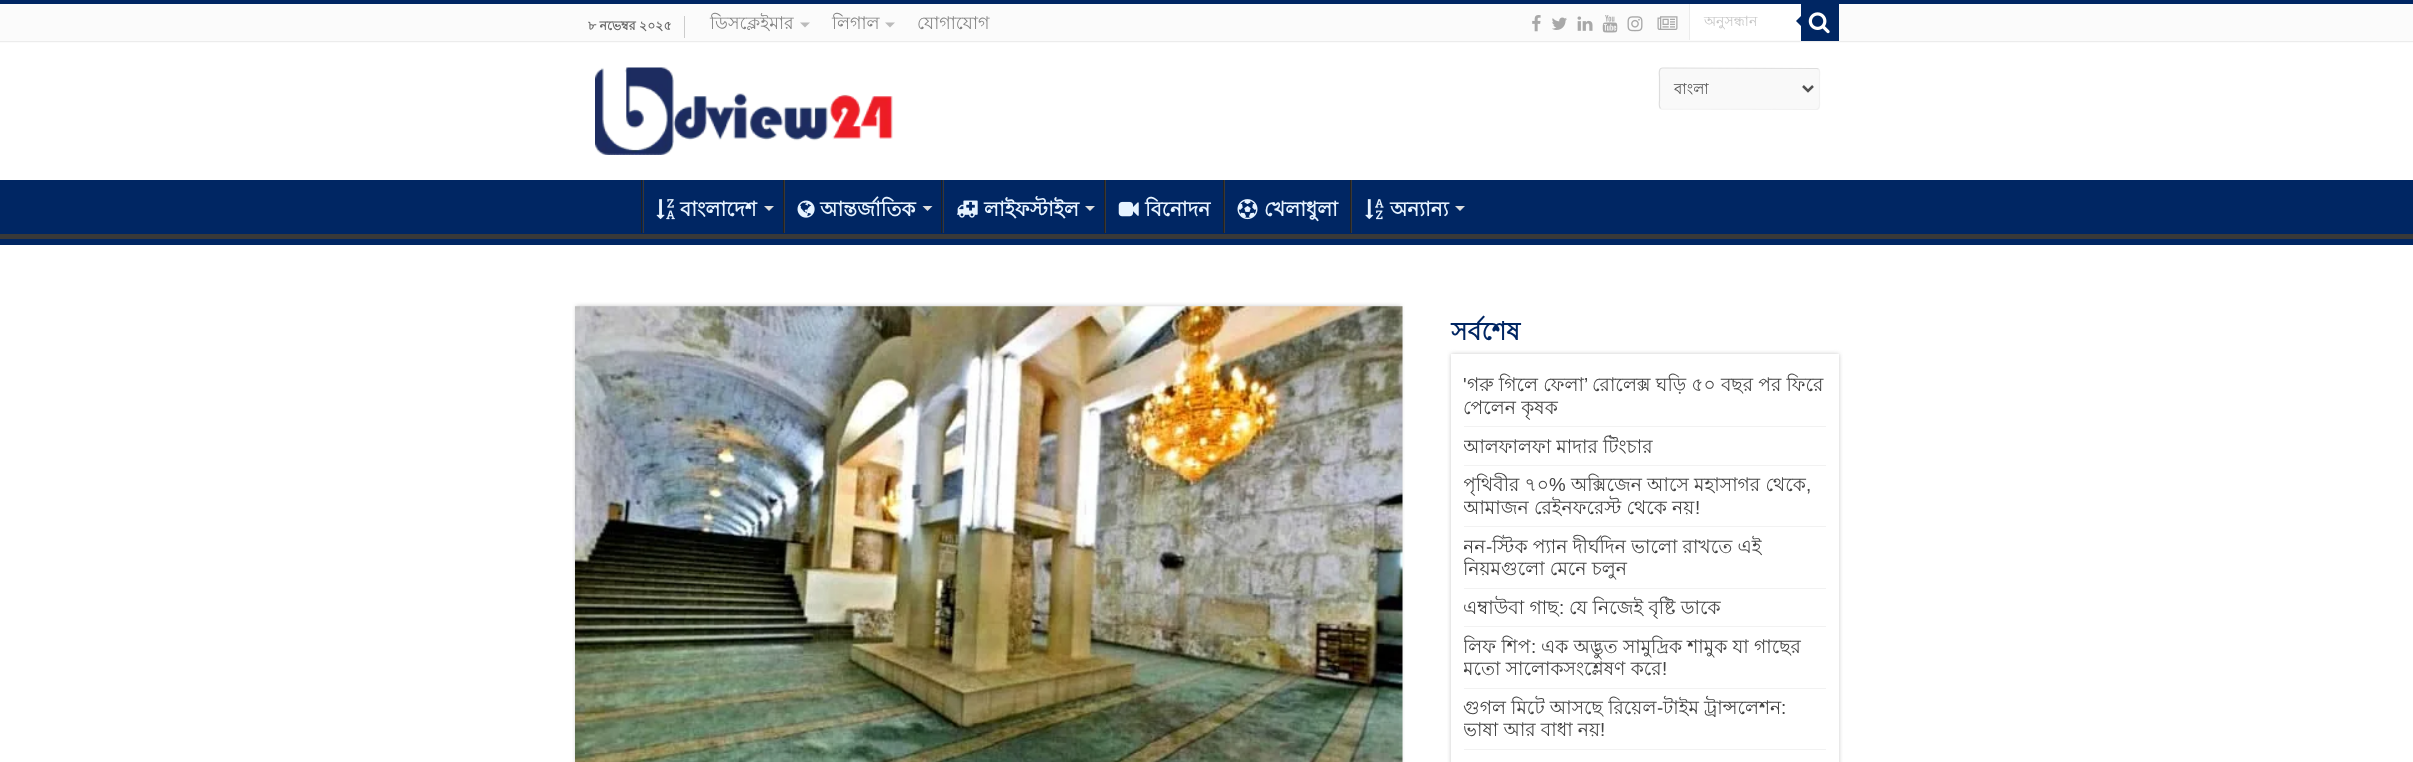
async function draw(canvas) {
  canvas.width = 2413
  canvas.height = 762
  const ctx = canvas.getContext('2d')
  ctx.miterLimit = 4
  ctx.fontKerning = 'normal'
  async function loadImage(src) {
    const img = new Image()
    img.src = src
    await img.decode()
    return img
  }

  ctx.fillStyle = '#fff'
  ctx.fillRect(0, 0, 2413, 762)
  ctx.fillStyle = '#002663'
  ctx.fillRect(0, 0, 2413, 4)
  ctx.fillStyle = '#fbfbfb'
  ctx.fillRect(0, 4, 2413, 39)
  ctx.fillStyle = '#ececec'
  ctx.fillRect(0, 41, 2413, 1)
  ctx.fillStyle = '#ccc'
  ctx.fillRect(684, 16, 1, 22)
  ctx.font = 'bold 12.5px Lohit Bengali'
  ctx.fillStyle = '#666'
  ctx.fillText('৮ নভেম্বর ২০২৫', 588, 30)
  ctx.font = '17.5px Lohit Bengali'
  ctx.fillStyle = '#838383'
  ctx.fillText('ডিসক্লেইমার', 710, 29)
  ctx.fillStyle = '#bbb'
  ctx.beginPath()
  ctx.moveTo(800, 22.5)
  ctx.lineTo(810, 22.5)
  ctx.lineTo(805, 27.5)
  ctx.closePath()
  ctx.fill()
  ctx.fillStyle = '#838383'
  ctx.fillText('লিগাল', 832, 29)
  ctx.fillStyle = '#bbb'
  ctx.beginPath()
  ctx.moveTo(885, 22.5)
  ctx.lineTo(895, 22.5)
  ctx.lineTo(890, 27.5)
  ctx.closePath()
  ctx.fill()
  ctx.fillStyle = '#838383'
  ctx.fillText('যোগাযোগ', 917, 29)
  ctx.drawImage(await loadImage('image0.png'), 1532, 15, 9, 17)
  ctx.drawImage(await loadImage('image1.png'), 1552, 17, 15, 13)
  ctx.drawImage(await loadImage('image2.png'), 1577, 16, 16, 15)
  ctx.drawImage(await loadImage('image3.png'), 1602, 15, 16, 18)
  ctx.drawImage(await loadImage('image4.png'), 1627, 16, 16, 16)
  ctx.drawImage(await loadImage('image5.png'), 1657, 16, 21, 14)
  ctx.fillStyle = '#fff'
  ctx.fillRect(1690, 4, 111, 36)
  ctx.fillStyle = '#ececec'
  ctx.fillRect(1689, 4, 1, 36)
  ctx.font = '14px Lohit Bengali'
  ctx.fillStyle = '#c5c5c5'
  ctx.fillText('অনুসন্ধান', 1704, 26)
  ctx.fillStyle = '#002663'
  ctx.fillRect(1801, 4, 38, 37)
  ctx.drawImage(await loadImage('image6.png'), 1808, 12, 22, 22)
  ctx.beginPath()
  ctx.moveTo(1801, 16)
  ctx.lineTo(1801, 26)
  ctx.lineTo(1796, 21)
  ctx.closePath()
  ctx.fill()
  ctx.drawImage(await loadImage('image7.png'), 595, 67, 298, 88)
  ctx.fillStyle = '#f9f9f9'
  ctx.beginPath()
  ctx.roundRect(1659, 68, 161, 42, 4)
  ctx.fill()
  ctx.beginPath()
  ctx.moveTo(1818.5, 69)
  ctx.bezierCurveTo(1820.5, 71, 1819.5, 75.5, 1819.5, 77)
  ctx.lineTo(1819.5, 100.5)
  ctx.bezierCurveTo(1819.5, 102.5, 1820.5, 109.5, 1816, 109.5)
  ctx.lineTo(1661.5, 109)
  ctx.lineTo(1660.5, 108.5)
  ctx.strokeStyle = '#f1f1f1'
  ctx.lineWidth = 1.2
  ctx.stroke()
  ctx.beginPath()
  ctx.moveTo(1660.5, 108.5)
  ctx.bezierCurveTo(1658.5, 106.5, 1659.5, 102, 1659.5, 100.5)
  ctx.lineTo(1659.5, 77)
  ctx.bezierCurveTo(1659.5, 75, 1658, 68, 1662.5, 68)
  ctx.lineTo(1817, 68.5)
  ctx.lineTo(1818.5, 69)
  ctx.strokeStyle = '#ddd'
  ctx.stroke()
  ctx.beginPath()
  ctx.moveTo(1803, 86)
  ctx.lineTo(1808, 91)
  ctx.lineTo(1813, 86)
  ctx.strokeStyle = '#515151'
  ctx.lineWidth = 2.5
  ctx.stroke()
  ctx.font = '15px Lohit Bengali'
  ctx.fillStyle = '#515151'
  ctx.fillText('বাংলা', 1674, 94)
  ctx.fillStyle = '#002663'
  ctx.fillRect(0, 180, 2413, 65)
  ctx.save()
  ctx.beginPath()
  ctx.rect(0, 180, 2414, 59)
  ctx.clip()
  ctx.fillStyle = '#393939'
  ctx.beginPath()
  ctx.moveTo(-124, 56)
  ctx.lineTo(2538, 56)
  ctx.lineTo(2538, 362)
  ctx.lineTo(-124, 362)
  ctx.closePath()
  ctx.moveTo(-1, 172)
  ctx.lineTo(2412, 172)
  ctx.bezierCurveTo(2413, 172, 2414, 173, 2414, 174)
  ctx.lineTo(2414, 232)
  ctx.bezierCurveTo(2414, 233, 2413, 234, 2412, 234)
  ctx.lineTo(-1, 234)
  ctx.bezierCurveTo(-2, 234, -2, 233, -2, 232)
  ctx.lineTo(-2, 174)
  ctx.bezierCurveTo(-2, 173, -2, 172, -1, 172)
  ctx.closePath()
  ctx.fill('evenodd')
  ctx.restore()
  ctx.fillStyle = '#222'
  ctx.fillRect(641, 180, 1, 53)
  ctx.fillStyle = '#383838'
  ctx.fillRect(643, 180, 1, 53)
  ctx.drawImage(await loadImage('image8.png'), 656, 199, 19, 21)
  ctx.font = 'bold 20px Lohit Bengali'
  ctx.fillStyle = '#e6f3ff'
  ctx.fillText('বাংলাদেশ', 680, 216)
  ctx.fillStyle = '#ddd'
  ctx.beginPath()
  ctx.moveTo(764, 206)
  ctx.lineTo(774, 206)
  ctx.lineTo(769, 211)
  ctx.closePath()
  ctx.fill()
  ctx.fillStyle = '#222'
  ctx.fillRect(783, 180, 1, 53)
  ctx.fillStyle = '#383838'
  ctx.fillRect(784, 180, 1, 53)
  ctx.drawImage(await loadImage('image9.png'), 797, 200, 18, 18)
  ctx.fillStyle = '#e6f3ff'
  ctx.fillText('আন্তর্জাতিক', 820, 216)
  ctx.fillStyle = '#ddd'
  ctx.beginPath()
  ctx.moveTo(922.5, 206)
  ctx.lineTo(932.5, 206)
  ctx.lineTo(927.5, 211)
  ctx.closePath()
  ctx.fill()
  ctx.fillStyle = '#222'
  ctx.fillRect(941, 180, 1, 53)
  ctx.fillStyle = '#383838'
  ctx.fillRect(943, 180, 1, 53)
  ctx.drawImage(await loadImage('image10.png'), 957, 200, 21, 18)
  ctx.fillStyle = '#e6f3ff'
  ctx.fillText('লাইফস্টাইল', 984, 216)
  ctx.fillStyle = '#ddd'
  ctx.beginPath()
  ctx.moveTo(1085, 206)
  ctx.lineTo(1095, 206)
  ctx.lineTo(1090, 211)
  ctx.closePath()
  ctx.fill()
  ctx.fillStyle = '#222'
  ctx.fillRect(1104, 180, 1, 53)
  ctx.fillStyle = '#383838'
  ctx.fillRect(1105, 180, 1, 53)
  ctx.drawImage(await loadImage('image11.png'), 1118, 201, 21, 16)
  ctx.fillStyle = '#e6f3ff'
  ctx.fillText('বিনোদন', 1145, 216)
  ctx.fillStyle = '#222'
  ctx.fillRect(1223, 180, 1, 53)
  ctx.fillStyle = '#383838'
  ctx.fillRect(1224, 180, 1, 53)
  ctx.drawImage(await loadImage('image12.png'), 1237, 199, 21, 21)
  ctx.fillStyle = '#e6f3ff'
  ctx.fillText('খেলাধুলা', 1264, 216)
  ctx.fillStyle = '#222'
  ctx.fillRect(1350, 180, 1, 53)
  ctx.fillStyle = '#383838'
  ctx.fillRect(1351, 180, 1, 53)
  ctx.drawImage(await loadImage('image13.png'), 1365, 199, 19, 21)
  ctx.fillStyle = '#e6f3ff'
  ctx.fillText('অন্যান্য', 1390, 216)
  ctx.fillStyle = '#ddd'
  ctx.beginPath()
  ctx.moveTo(1455, 206)
  ctx.lineTo(1465, 206)
  ctx.lineTo(1460, 211)
  ctx.closePath()
  ctx.fill()
  ctx.fillStyle = '#cacaca'
  ctx.filter = 'blur(2px)'
  ctx.beginPath()
  ctx.rect(576, 306, 825, 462)
  ctx.fill()
  ctx.filter = 'none'
  ctx.drawImage(await loadImage('image14.png'), 575, 306, 828, 456)
  ctx.font = 'bold 25px Lohit Bengali'
  ctx.fillStyle = '#002663'
  ctx.fillText('সর্বশেষ', 1451, 340)
  ctx.fillStyle = '#cacaca'
  ctx.filter = 'blur(2px)'
  ctx.beginPath()
  ctx.rect(1451, 354, 388, 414)
  ctx.fill()
  ctx.filter = 'none'
  ctx.fillStyle = '#fff'
  ctx.fillRect(1451, 354, 388, 408)
  ctx.fillStyle = '#f2f2f2'
  ctx.fillRect(1464, 426, 362, 1)
  ctx.font = '18.75px Liberation Sans'
  ctx.fillStyle = '#444'
  ctx.fillText('\'', 1463, 391)
  ctx.font = '18.75px Lohit Bengali'
  ctx.fillText('গরু গিলে ফেলা', 1467, 391)
  ctx.font = '18.75px Liberation Sans'
  ctx.fillText('’', 1584, 391)
  ctx.font = '18.75px Lohit Bengali'
  ctx.fillText('রোলেক্স ঘড়ি ৫০ বছর পর ফিরে', 1592, 391)
  ctx.fillText('পেলেন কৃষক', 1463, 414)
  ctx.fillStyle = '#f2f2f2'
  ctx.fillRect(1464, 465, 362, 1)
  ctx.save()
  ctx.beginPath()
  ctx.rect(1464, 428, 362, 37)
  ctx.clip()
  ctx.fillStyle = '#444'
  ctx.fillText('আলফালফা মাদার টিংচার', 1463, 453)
  ctx.restore()
  ctx.fillRect(1464, 526, 362, 1)
  ctx.save()
  ctx.beginPath()
  ctx.rect(1464, 466, 362, 60)
  ctx.clip()
  ctx.fillStyle = '#444'
  ctx.fillText('পৃথিবীর ৭০', 1463, 491)
  ctx.restore()
  ctx.font = '18.75px Liberation Sans'
  ctx.fillStyle = '#444'
  ctx.fillText('%', 1549, 491)
  ctx.font = '18.75px Lohit Bengali'
  ctx.fillText('অক্সিজেন আসে মহাসাগর থেকে', 1571, 491)
  ctx.font = '18.75px Liberation Sans'
  ctx.fillText(',', 1806, 491)
  ctx.save()
  ctx.beginPath()
  ctx.rect(1464, 466, 362, 60)
  ctx.clip()
  ctx.font = '18.75px Lohit Bengali'
  ctx.fillText('আমাজন রেইনফরেস্ট থেকে নয়', 1463, 514)
  ctx.restore()
  ctx.fillText('!', 1695, 514)
  ctx.fillStyle = '#f2f2f2'
  ctx.fillRect(1464, 588, 362, 1)
  ctx.save()
  ctx.beginPath()
  ctx.rect(1464, 528, 362, 60)
  ctx.clip()
  ctx.font = '18.75px Lohit Bengali'
  ctx.fillStyle = '#444'
  ctx.fillText('নন', 1463, 553)
  ctx.restore()
  ctx.fillStyle = '#444'
  ctx.fillText('-', 1486, 553)
  ctx.font = '18.75px Lohit Bengali'
  ctx.fillText('স্টিক প্যান দীর্ঘদিন ভালো রাখতে এই', 1492, 553)
  ctx.save()
  ctx.beginPath()
  ctx.rect(1464, 528, 362, 60)
  ctx.clip()
  ctx.fillText('নিয়মগুলো মেনে চলুন', 1463, 575)
  ctx.restore()
  ctx.fillStyle = '#f2f2f2'
  ctx.fillRect(1464, 626, 362, 1)
  ctx.fillStyle = '#444'
  ctx.fillText('এম্বাউবা গাছ', 1463, 614)
  ctx.font = '18.75px Liberation Sans'
  ctx.fillText(':', 1559, 614)
  ctx.font = '18.75px Lohit Bengali'
  ctx.fillText('যে নিজেই বৃষ্টি ডাকে', 1569, 614)
  ctx.fillStyle = '#f2f2f2'
  ctx.fillRect(1464, 688, 362, 1)
  ctx.save()
  ctx.beginPath()
  ctx.rect(1464, 628, 362, 60)
  ctx.clip()
  ctx.fillStyle = '#444'
  ctx.fillText('লিফ শিপ', 1463, 653)
  ctx.restore()
  ctx.font = '18.75px Liberation Sans'
  ctx.fillStyle = '#444'
  ctx.fillText(':', 1531, 653)
  ctx.font = '18.75px Lohit Bengali'
  ctx.fillText('এক অদ্ভুত সামুদ্রিক শামুক যা গাছের', 1541, 653)
  ctx.save()
  ctx.beginPath()
  ctx.rect(1464, 628, 362, 60)
  ctx.clip()
  ctx.fillText('মতো সালোকসংশ্লেষণ করে', 1463, 675)
  ctx.restore()
  ctx.font = '18.75px Liberation Sans'
  ctx.fillText('!', 1662, 675)
  ctx.fillStyle = '#f2f2f2'
  ctx.fillRect(1464, 749, 362, 1)
  ctx.font = '18.75px Lohit Bengali'
  ctx.fillStyle = '#444'
  ctx.fillText('গুগল মিটে আসছে রিয়েল', 1463, 714)
  ctx.font = '18.75px Liberation Sans'
  ctx.fillText('-', 1657, 714)
  ctx.font = '18.75px Lohit Bengali'
  ctx.fillText('টাইম ট্রান্সলেশন', 1663, 714)
  ctx.font = '18.75px Liberation Sans'
  ctx.fillText(':', 1781, 714)
  ctx.save()
  ctx.beginPath()
  ctx.rect(1464, 689, 362, 60)
  ctx.clip()
  ctx.font = '18.75px Lohit Bengali'
  ctx.fillText('ভাষা আর বাধা নয়', 1463, 736)
  ctx.restore()
  ctx.fillText('!', 1600, 736)
}

draw(document.querySelector('canvas'))
